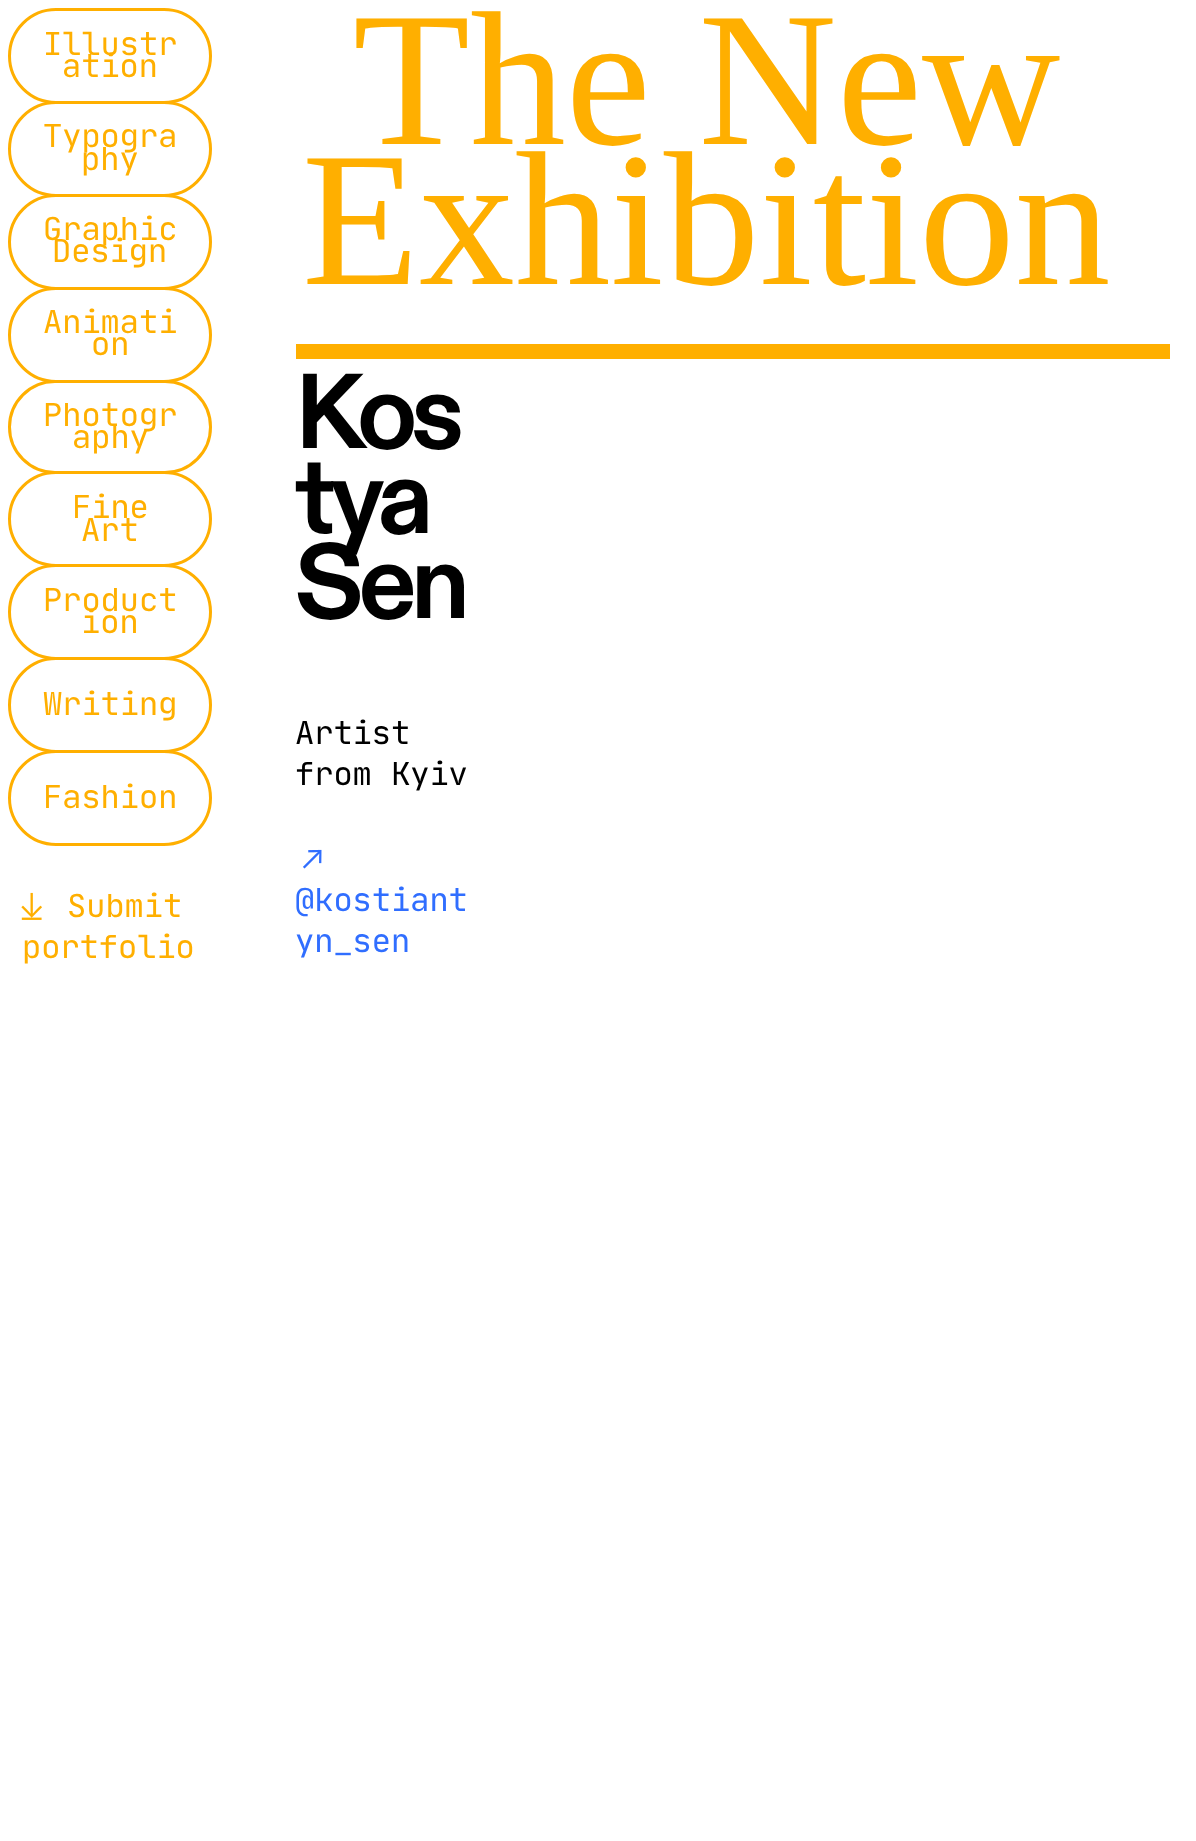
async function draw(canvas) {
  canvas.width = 1196
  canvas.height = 1841
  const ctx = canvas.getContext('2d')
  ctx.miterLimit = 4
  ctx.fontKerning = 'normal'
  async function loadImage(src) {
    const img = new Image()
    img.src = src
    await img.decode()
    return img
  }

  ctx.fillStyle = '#fff'
  ctx.fillRect(0, 0, 1196, 1841)
  ctx.beginPath()
  ctx.roundRect(9.5, 9.5, 201, 93, 46.5)
  ctx.strokeStyle = '#ffaf00'
  ctx.lineWidth = 3
  ctx.stroke()
  ctx.font = '32px JetBrains Mono'
  ctx.fillStyle = '#ffaf00'
  ctx.fillText('Illustr', 43, 55)
  ctx.fillText('ation', 62, 77)
  ctx.beginPath()
  ctx.roundRect(9.5, 102.5, 201, 93, 46.5)
  ctx.stroke()
  ctx.fillText('Typogra', 43, 147)
  ctx.fillText('phy', 81, 170)
  ctx.beginPath()
  ctx.roundRect(9.5, 195.5, 201, 93, 46.5)
  ctx.stroke()
  ctx.fillText('Graphic', 43, 240)
  ctx.fillText('Design', 52, 262)
  ctx.beginPath()
  ctx.roundRect(9.5, 288.5, 201, 93, 46.5)
  ctx.stroke()
  ctx.fillText('Animati', 43, 333)
  ctx.fillText('on', 91, 355)
  ctx.beginPath()
  ctx.roundRect(9.5, 381.5, 201, 91, 45.5)
  ctx.stroke()
  ctx.fillText('Photogr', 43, 426)
  ctx.fillText('aphy', 72, 448)
  ctx.beginPath()
  ctx.roundRect(9.5, 472.5, 201, 93, 46.5)
  ctx.stroke()
  ctx.fillText('Fine', 72, 518)
  ctx.fillText('Art', 81, 541)
  ctx.beginPath()
  ctx.roundRect(9.5, 565.5, 201, 93, 46.5)
  ctx.stroke()
  ctx.fillText('Product', 43, 611)
  ctx.fillText('ion', 81, 633)
  ctx.beginPath()
  ctx.roundRect(9.5, 658.5, 201, 93, 46.5)
  ctx.stroke()
  ctx.fillText('Writing', 43, 715)
  ctx.beginPath()
  ctx.roundRect(9.5, 751.5, 201, 93, 46.5)
  ctx.stroke()
  ctx.fillText('Fashion', 43, 808)
  ctx.drawImage(await loadImage('image0.png'), 21, 892, 21, 28)
  ctx.fillText('Submit', 67, 917)
  ctx.fillText('portfolio', 22, 958)
  ctx.font = '191.5px Liberation Serif'
  ctx.fillText('The New', 353, 144)
  ctx.fillText('Exhibition', 302, 284)
  ctx.fillRect(296, 344, 874, 15)
  ctx.letterSpacing = '-6px'
  ctx.font = 'bold 106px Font'
  ctx.fillStyle = '#000'
  ctx.fillText('Kos', 295, 448)
  ctx.fillText('tya', 295, 533)
  ctx.fillText('Sen', 295, 618)
  ctx.letterSpacing = '0px'
  ctx.font = '32px JetBrains Mono'
  ctx.fillText('Artist', 295, 744)
  ctx.fillText('from Kyiv', 295, 785)
  ctx.drawImage(await loadImage('image1.png'), 303, 849, 19, 20)
  ctx.fillStyle = '#306eff'
  ctx.fillText('@kostiant', 295, 911)
  ctx.fillText('yn_sen', 295, 952)
}

draw(document.querySelector('canvas'))
